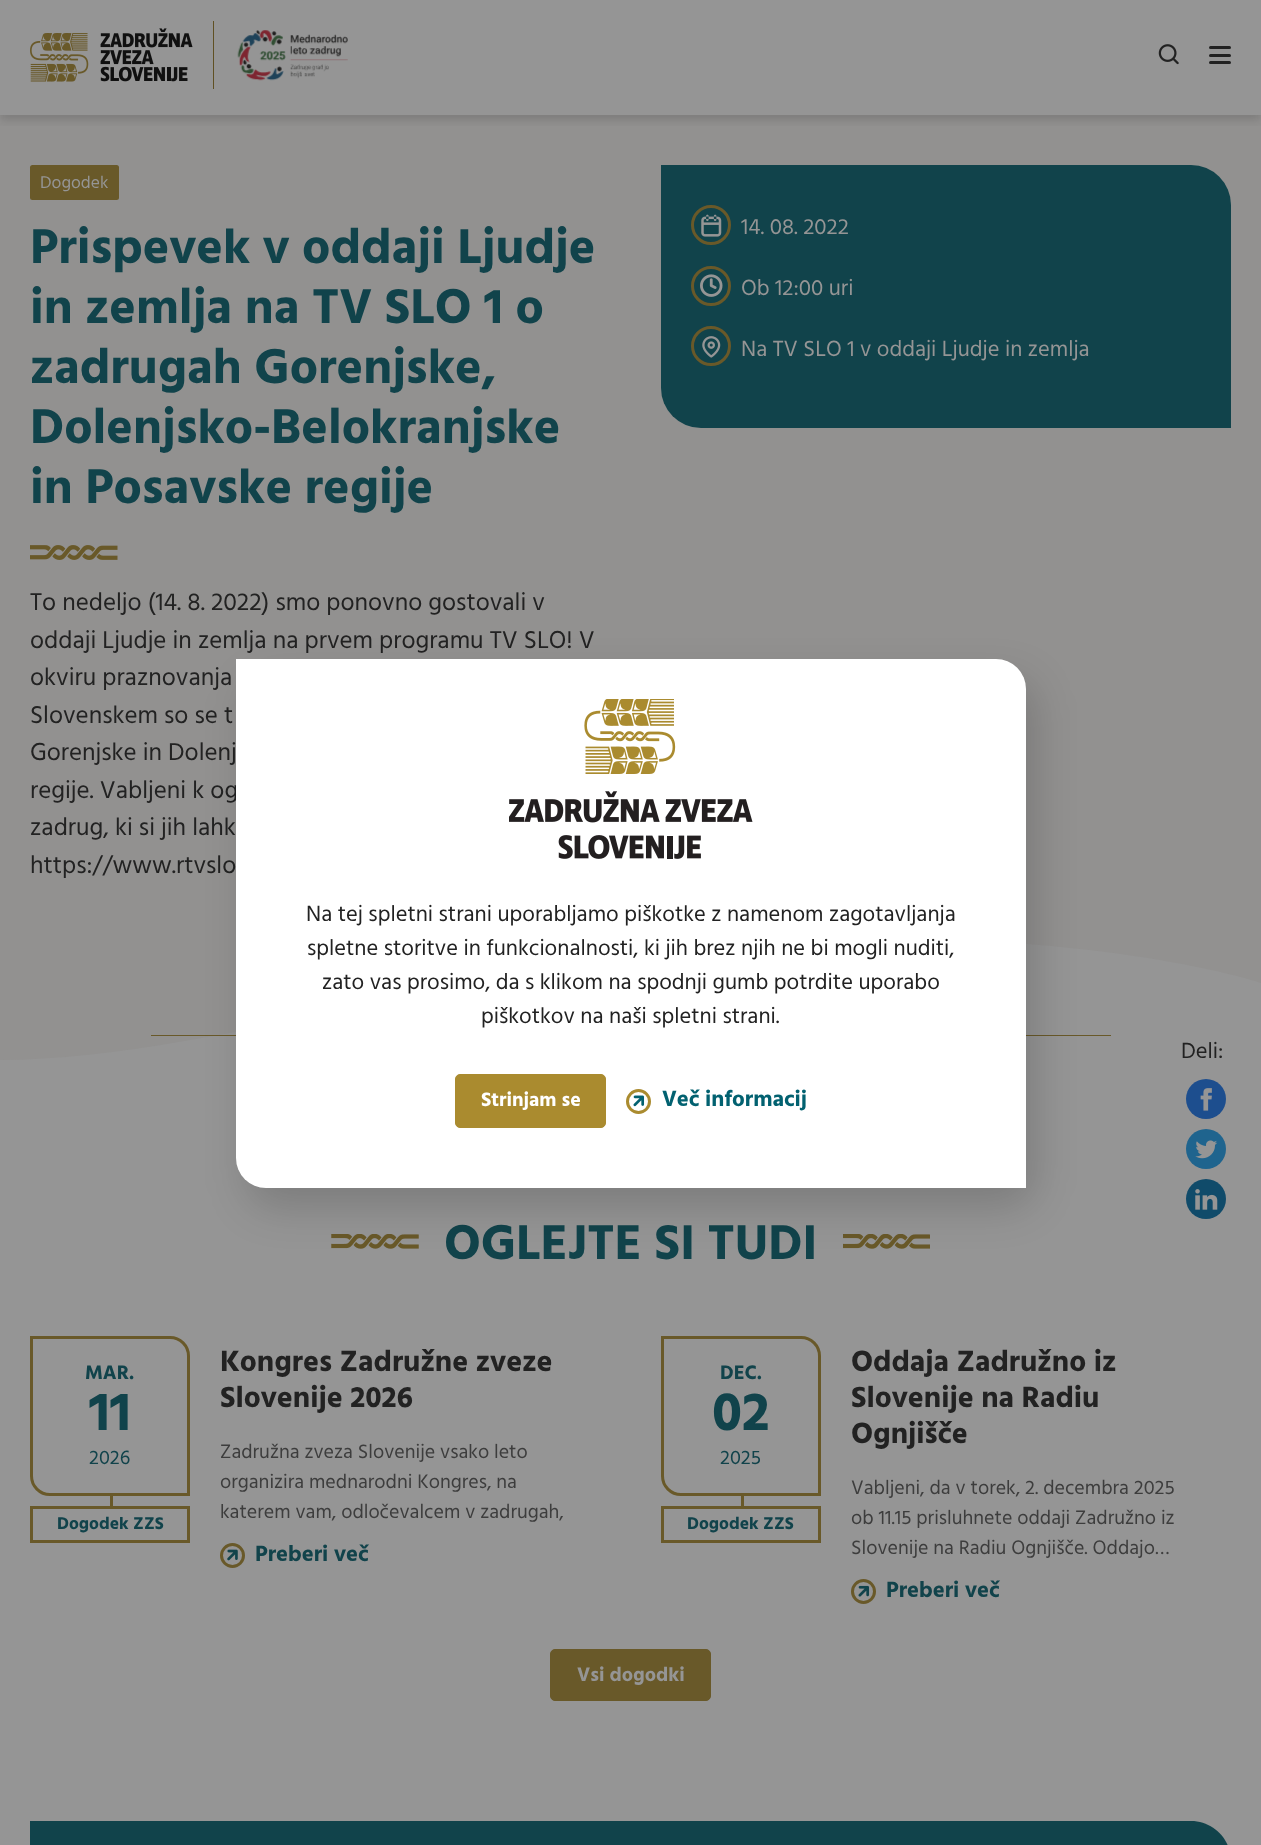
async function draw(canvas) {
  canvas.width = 1261
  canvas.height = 1845
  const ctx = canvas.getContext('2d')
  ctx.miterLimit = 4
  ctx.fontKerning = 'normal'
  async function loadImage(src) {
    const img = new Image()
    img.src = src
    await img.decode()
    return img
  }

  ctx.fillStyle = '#959595'
  ctx.fillRect(0, 0, 1261, 1845)
  ctx.fillStyle = '#929190'
  ctx.fillRect(0, 115, 1261, 800)
  ctx.save()
  ctx.beginPath()
  ctx.rect(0, 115, 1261, 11)
  ctx.clip()
  ctx.fillStyle = '#10101029'
  ctx.filter = 'blur(5px)'
  ctx.beginPath()
  ctx.rect(0, 5, 1261, 115)
  ctx.fill()
  ctx.filter = 'none'
  ctx.restore()
  ctx.drawImage(await loadImage('image0.png'), 30, 28, 163, 54)
  ctx.fillStyle = '#605023'
  ctx.fillRect(213, 21, 1, 68)
  ctx.drawImage(await loadImage('image1.png'), 237, 30, 111, 51)
  ctx.drawImage(await loadImage('image2.png'), 1158, 44, 21, 21)
  ctx.fillStyle = '#222'
  ctx.beginPath()
  ctx.roundRect(1209, 54, 22, 3, 1.5)
  ctx.fill()
  ctx.beginPath()
  ctx.roundRect(1209, 46, 22, 3, 1.5)
  ctx.fill()
  ctx.beginPath()
  ctx.roundRect(1209, 61, 22, 3, 1.5)
  ctx.fill()
  ctx.fillStyle = '#695929'
  ctx.beginPath()
  ctx.roundRect(30, 165, 89, 35, 2.5)
  ctx.fill()
  ctx.font = '17.5px Hind'
  ctx.fillStyle = '#959595'
  ctx.fillText('Dogodek', 40, 188)
  ctx.font = 'bold 50px Hind'
  ctx.fillStyle = '#11434b'
  ctx.fillText('Prispevek v oddaji Ljudje', 30, 263)
  ctx.fillText('in zemlja na TV SLO 1 o', 30, 323)
  ctx.fillText('zadrugah Gorenjske,', 30, 383)
  ctx.fillText('Dolenjsko-Belokranjske', 30, 443)
  ctx.fillText('in Posavske regije', 30, 503)
  ctx.drawImage(await loadImage('image3.png'), 30, 545, 88, 15)
  ctx.font = '25px Hind'
  ctx.fillStyle = '#222'
  ctx.fillText('To nedeljo (14. 8. 2022) smo ponovno gostovali v', 30, 610)
  ctx.fillText('oddaji Ljudje in zemlja na prvem programu TV SLO! V', 30, 648)
  ctx.fillText('okviru praznovanja', 30, 685)
  ctx.fillText('Slovenskem so se t', 30, 723)
  ctx.fillText('Gorenjske in Dolenj', 30, 760)
  ctx.fillText('regije. Vabljeni k og', 30, 798)
  ctx.fillText('zadrug, ki si jih lahk', 30, 835)
  ctx.fillText('https://www.rtvslo', 30, 873)
  ctx.fillStyle = '#11434b'
  ctx.beginPath()
  ctx.roundRect(661, 165, 570, 263, [0, 40, 0, 40])
  ctx.fill()
  ctx.beginPath()
  ctx.arc(711, 225, 18.5, 0, 2 * Math.PI)
  ctx.strokeStyle = '#695929'
  ctx.lineWidth = 3
  ctx.stroke()
  ctx.drawImage(await loadImage('image4.png'), 701, 214, 21, 23)
  ctx.font = '22.5px Hind'
  ctx.fillStyle = '#959595'
  ctx.fillText('14. 08. 2022', 741, 234)
  ctx.beginPath()
  ctx.arc(711, 286, 18.5, 0, 2 * Math.PI)
  ctx.stroke()
  ctx.drawImage(await loadImage('image5.png'), 700, 274, 23, 23)
  ctx.fillText('Ob 12:00 uri', 741, 295)
  ctx.beginPath()
  ctx.arc(711, 346, 18.5, 0, 2 * Math.PI)
  ctx.stroke()
  ctx.drawImage(await loadImage('image6.png'), 702, 336, 19, 22)
  ctx.fillText('Na TV SLO 1 v oddaji Ljudje in zemlja', 741, 356)
  ctx.fillStyle = '#929190'
  ctx.beginPath()
  ctx.moveTo(0, 1060)
  ctx.bezierCurveTo(224, 1060, 559, 937, 844, 937)
  ctx.bezierCurveTo(1130, 937, 1261, 983, 1261, 983)
  ctx.lineTo(1261, 915)
  ctx.lineTo(0, 915)
  ctx.closePath()
  ctx.fill()
  ctx.fillStyle = '#695929'
  ctx.fillRect(151, 1035, 960, 1)
  ctx.fillStyle = '#222'
  ctx.fillText('Deli:', 1181, 1058)
  ctx.fillStyle = '#1d4e8e'
  ctx.beginPath()
  ctx.arc(1206, 1099, 20, 0, 2 * Math.PI)
  ctx.fill()
  ctx.drawImage(await loadImage('image7.png'), 1200, 1088, 12, 23)
  ctx.fillStyle = '#1f648e'
  ctx.beginPath()
  ctx.arc(1206, 1149, 20, 0, 2 * Math.PI)
  ctx.fill()
  ctx.drawImage(await loadImage('image8.png'), 1195, 1140, 23, 19)
  ctx.fillStyle = '#104b6a'
  ctx.beginPath()
  ctx.arc(1206, 1199, 20, 0, 2 * Math.PI)
  ctx.fill()
  ctx.drawImage(await loadImage('image9.png'), 1195, 1189, 23, 21)
  ctx.drawImage(await loadImage('image10.png'), 331, 1234, 88, 15)
  ctx.font = 'bold 50px Hind'
  ctx.fillStyle = '#11434b'
  ctx.fillText('OGLEJTE SI TUDI', 444, 1259)
  ctx.drawImage(await loadImage('image11.png'), 843, 1234, 87, 15)
  ctx.beginPath()
  ctx.roundRect(31.5, 1337.5, 157, 157, [0, 18.5, 0, 18.5])
  ctx.stroke()
  ctx.font = 'bold 20px Hind'
  ctx.fillText('MAR.', 85, 1379)
  ctx.font = 'bold 55px Hind'
  ctx.fillText('11', 89, 1430)
  ctx.font = '20px Hind'
  ctx.fillText('2026', 89, 1464)
  ctx.strokeRect(31.5, 1507.5, 157, 34)
  ctx.fillStyle = '#695929'
  ctx.fillRect(110, 1496, 3, 10)
  ctx.font = 'bold 17.5px Hind'
  ctx.fillStyle = '#11434b'
  ctx.fillText('Dogodek ZZS', 57, 1529)
  ctx.font = 'bold 30px Hind'
  ctx.fillStyle = '#222'
  ctx.fillText('Kongres Zadružne zveze', 220, 1371)
  ctx.fillText('Slovenije 2026', 220, 1407)
  ctx.font = '20px Hind'
  ctx.fillStyle = '#3d3d3d'
  ctx.fillText('Zadružna zveza Slovenije vsako leto', 220, 1458)
  ctx.fillText('organizira mednarodni Kongres, na', 220, 1488)
  ctx.fillText('katerem vam, odločevalcem v zadrugah,', 220, 1518)
  ctx.beginPath()
  ctx.arc(232.5, 1555.5, 11, 0, 2 * Math.PI)
  ctx.stroke()
  ctx.drawImage(await loadImage('image12.png'), 227, 1549, 11, 12)
  ctx.font = 'bold 22.5px Hind'
  ctx.fillStyle = '#11434b'
  ctx.fillText('Preberi več', 255, 1561)
  ctx.beginPath()
  ctx.roundRect(662.5, 1337.5, 157, 157, [0, 18.5, 0, 18.5])
  ctx.stroke()
  ctx.font = 'bold 20px Hind'
  ctx.fillText('DEC.', 720, 1379)
  ctx.font = 'bold 55px Hind'
  ctx.fillText('02', 712, 1430)
  ctx.font = '20px Hind'
  ctx.fillText('2025', 720, 1464)
  ctx.strokeRect(662.5, 1507.5, 157, 34)
  ctx.fillStyle = '#695929'
  ctx.fillRect(741, 1496, 3, 10)
  ctx.font = 'bold 17.5px Hind'
  ctx.fillStyle = '#11434b'
  ctx.fillText('Dogodek ZZS', 687, 1529)
  ctx.font = 'bold 30px Hind'
  ctx.fillStyle = '#222'
  ctx.fillText('Oddaja Zadružno iz', 851, 1371)
  ctx.fillText('Slovenije na Radiu', 851, 1407)
  ctx.fillText('Ognjišče', 851, 1443)
  ctx.font = '20px Hind'
  ctx.fillStyle = '#3d3d3d'
  ctx.fillText('Vabljeni, da v torek, 2. decembra 2025', 851, 1494)
  ctx.fillText('ob 11.15 prisluhnete oddaji Zadružno iz', 851, 1524)
  ctx.fillText('Slovenije na Radiu Ognjišče. Oddajo…', 851, 1554)
  ctx.beginPath()
  ctx.arc(863.5, 1591.5, 11, 0, 2 * Math.PI)
  ctx.stroke()
  ctx.drawImage(await loadImage('image13.png'), 858, 1585, 12, 12)
  ctx.font = 'bold 22.5px Hind'
  ctx.fillStyle = '#11434b'
  ctx.fillText('Preberi več', 886, 1597)
  ctx.fillStyle = '#695929'
  ctx.beginPath()
  ctx.roundRect(550.5, 1649.5, 160, 51, 4.5)
  ctx.fill()
  ctx.lineWidth = 1
  ctx.stroke()
  ctx.font = 'bold 20px Hind'
  ctx.fillStyle = '#959595'
  ctx.fillText('Vsi dogodki', 577, 1681)
  ctx.fillStyle = '#00000029'
  ctx.filter = 'blur(20px)'
  ctx.beginPath()
  ctx.roundRect(246, 679, 790, 529, 30)
  ctx.fill()
  ctx.filter = 'none'
  ctx.fillStyle = '#fff'
  ctx.beginPath()
  ctx.roundRect(236, 659, 790, 529, [0, 30, 0, 30])
  ctx.fill()
  ctx.drawImage(await loadImage('image14.png'), 509, 699, 244, 160)
  ctx.font = '22.5px Hind'
  ctx.fillStyle = '#222'
  ctx.fillText('Na tej spletni strani uporabljamo piškotke z namenom zagotavljanja', 306, 921)
  ctx.fillText('spletne storitve in funkcionalnosti, ki jih brez njih ne bi mogli nuditi,', 307, 955)
  ctx.fillText('zato vas prosimo, da s klikom na spodnji gumb potrdite uporabo', 322, 989)
  ctx.fillText('piškotkov na naši spletni strani.', 481, 1023)
  ctx.fillStyle = '#aa8b2f'
  ctx.beginPath()
  ctx.roundRect(455.5, 1074.5, 150, 53, 4.5)
  ctx.fill()
  ctx.strokeStyle = '#aa8b2f'
  ctx.stroke()
  ctx.font = 'bold 20px Hind'
  ctx.fillStyle = '#fff'
  ctx.fillText('Strinjam se', 481, 1106)
  ctx.beginPath()
  ctx.arc(638.5, 1101.5, 11, 0, 2 * Math.PI)
  ctx.lineWidth = 3
  ctx.stroke()
  ctx.drawImage(await loadImage('image15.png'), 633, 1095, 12, 12)
  ctx.font = 'bold 22.5px Hind'
  ctx.fillStyle = '#026170'
  ctx.fillText('Več informacij', 662, 1106)
  ctx.fillStyle = '#11434b'
  ctx.beginPath()
  ctx.moveTo(30, 1821)
  ctx.lineTo(1191, 1821)
  ctx.bezierCurveTo(1213, 1821, 1231, 1839, 1231, 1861)
  ctx.lineTo(1231, 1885)
  ctx.lineTo(70, 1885)
  ctx.bezierCurveTo(48, 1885, 30, 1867, 30, 1845)
  ctx.closePath()
  ctx.fill()
}

draw(document.querySelector('canvas'))
